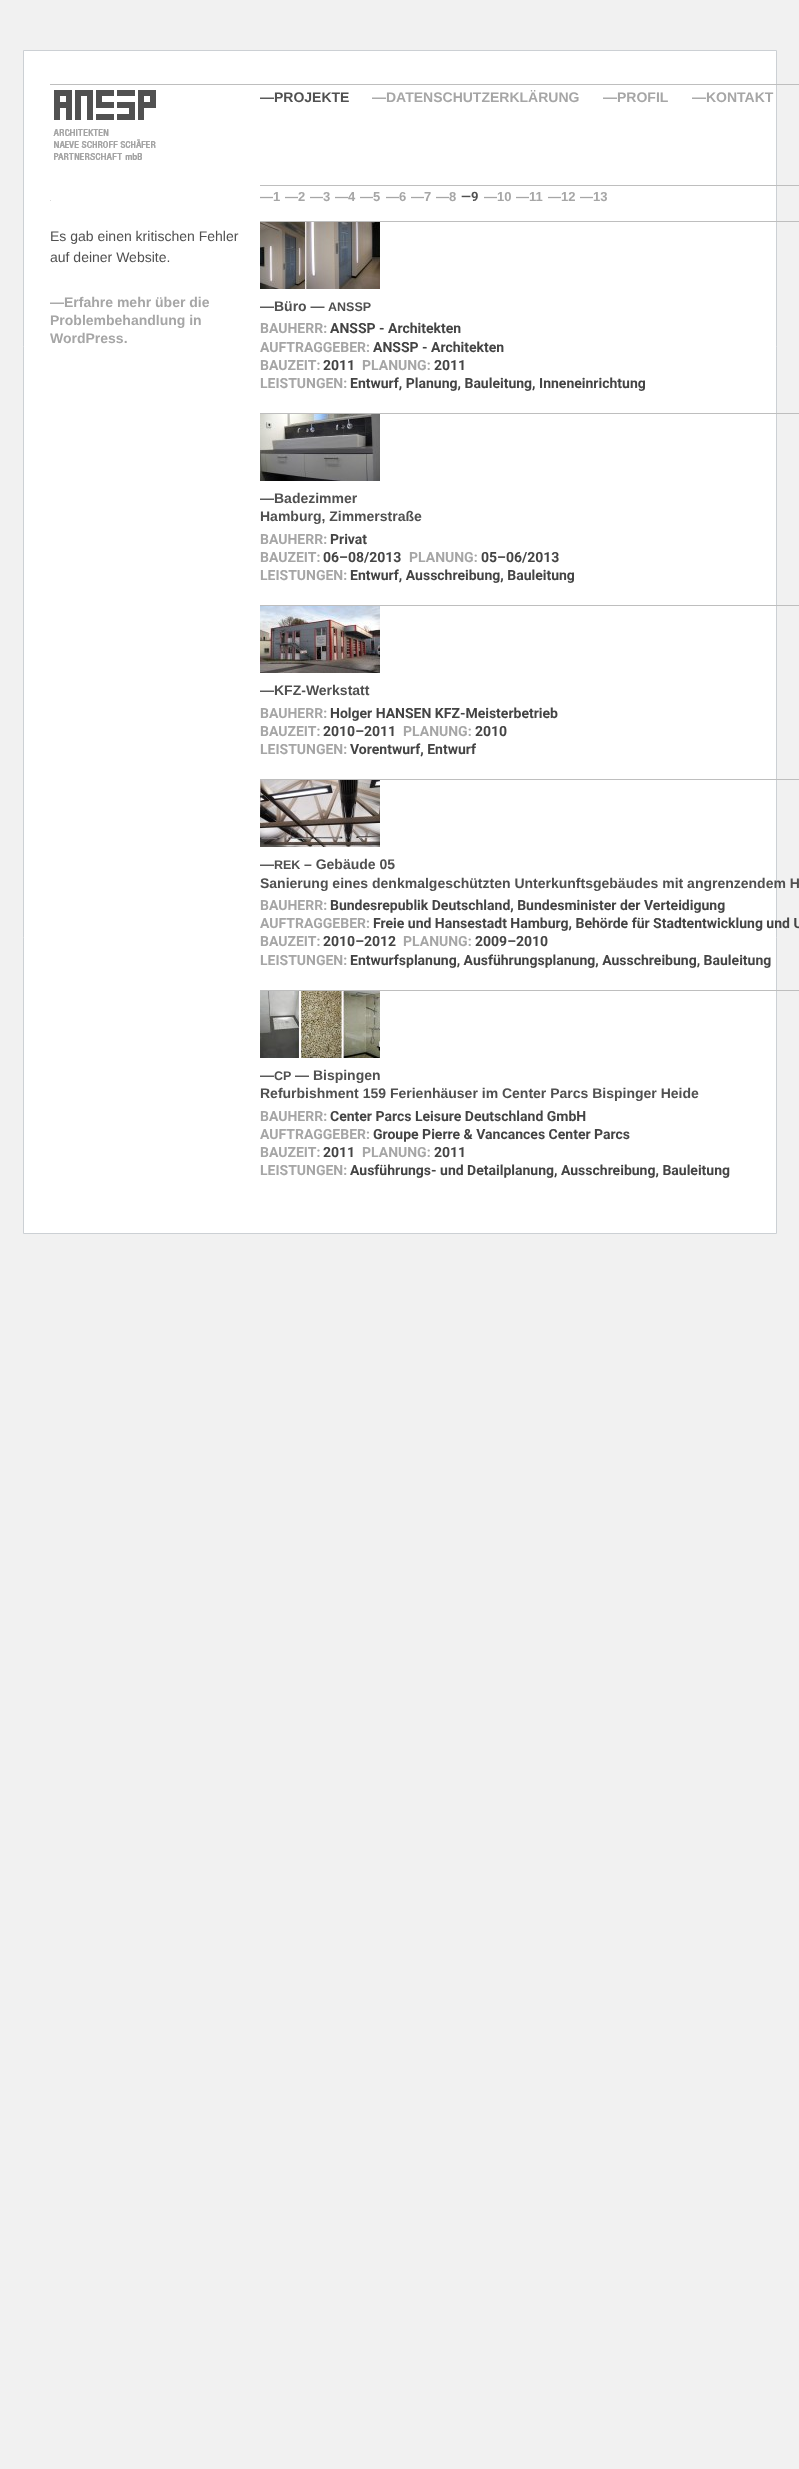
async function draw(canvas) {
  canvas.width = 799
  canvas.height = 2469
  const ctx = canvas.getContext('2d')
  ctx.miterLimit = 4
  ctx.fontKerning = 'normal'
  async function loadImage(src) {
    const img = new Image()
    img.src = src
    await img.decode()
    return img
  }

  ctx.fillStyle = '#f1f1f1'
  ctx.fillRect(0, 0, 799, 2469)
  ctx.fillStyle = '#fff'
  ctx.beginPath()
  ctx.rect(23.5, 50.5, 753, 1183)
  ctx.fill()
  ctx.strokeStyle = '#ccd0d4'
  ctx.stroke()
  ctx.fillStyle = '#bebebe'
  ctx.fillRect(50, 84, 749, 1)
  ctx.drawImage(await loadImage('image0.png'), 53, 90, 103, 70)
  ctx.fillStyle = '#dadada'
  ctx.fillRect(50, 200, 1, 1)
  ctx.font = 'bold 14px Liberation Sans'
  ctx.fillStyle = '#505050'
  ctx.fillText('—PROJEKTE', 260, 102)
  ctx.fillStyle = '#a6a6a6'
  ctx.fillText('—DATENSCHUTZERKLÄRUNG', 372, 102)
  ctx.fillText('—PROFIL', 603, 102)
  ctx.fillText('—KONTAKT', 692, 102)
  ctx.font = '14px Liberation Sans'
  ctx.fillStyle = '#505050'
  ctx.fillText('Es gab einen kritischen Fehler', 50, 241)
  ctx.fillText('auf deiner Website.', 50, 262)
  ctx.font = 'bold 14px Liberation Sans'
  ctx.fillStyle = '#a6a6a6'
  ctx.fillText('—Erfahre mehr über die', 50, 307)
  ctx.fillText('Problembehandlung in', 50, 325)
  ctx.fillText('WordPress.', 50, 343)
  ctx.fillStyle = '#bebebe'
  ctx.fillRect(260, 185, 539, 1)
  ctx.font = 'bold 13px Liberation Sans'
  ctx.fillStyle = '#a6a6a6'
  ctx.fillText('—1', 260, 201)
  ctx.fillText('—2', 285, 201)
  ctx.fillText('—3', 310, 201)
  ctx.fillText('—4', 335, 201)
  ctx.fillText('—5', 360, 201)
  ctx.fillText('—6', 386, 201)
  ctx.fillText('—7', 411, 201)
  ctx.fillText('—8', 436, 201)
  ctx.font = 'bold 13px Roboto'
  ctx.fillStyle = '#505050'
  ctx.fillText('—9', 461, 201)
  ctx.font = 'bold 13px Liberation Sans'
  ctx.fillStyle = '#a6a6a6'
  ctx.fillText('—10', 484, 201)
  ctx.fillText('—11', 516, 201)
  ctx.fillText('—12', 548, 201)
  ctx.fillText('—13', 580, 201)
  ctx.fillStyle = '#bebebe'
  ctx.fillRect(260, 221, 539, 1)
  ctx.drawImage(await loadImage('image1.png'), 260, 222, 120, 67)
  ctx.font = 'bold 14px Liberation Sans'
  ctx.fillStyle = '#505050'
  ctx.fillText('—Büro —', 260, 311)
  ctx.font = 'bold 12.5px Liberation Sans'
  ctx.fillText('ANSSP', 328, 311)
  ctx.font = 'bold 14px Roboto'
  ctx.fillStyle = '#a6a6a6'
  ctx.fillText('BAUHERR:', 260, 333)
  ctx.fillStyle = '#444'
  ctx.fillText('ANSSP - Architekten', 330, 333)
  ctx.fillStyle = '#a6a6a6'
  ctx.fillText('AUFTRAGGEBER:', 260, 352)
  ctx.fillStyle = '#444'
  ctx.fillText('ANSSP - Architekten', 373, 352)
  ctx.fillStyle = '#a6a6a6'
  ctx.fillText('BAUZEIT:', 260, 370)
  ctx.fillStyle = '#444'
  ctx.fillText('2011', 323, 370)
  ctx.fillStyle = '#a6a6a6'
  ctx.fillText('PLANUNG:', 362, 370)
  ctx.fillStyle = '#444'
  ctx.fillText('2011', 434, 370)
  ctx.fillStyle = '#a6a6a6'
  ctx.fillText('LEISTUNGEN:', 260, 388)
  ctx.fillStyle = '#444'
  ctx.fillText('Entwurf, Planung, Bauleitung, Inneneinrichtung', 350, 388)
  ctx.fillStyle = '#bebebe'
  ctx.fillRect(260, 413, 539, 1)
  ctx.drawImage(await loadImage('image2.png'), 260, 414, 120, 67)
  ctx.font = 'bold 14px Liberation Sans'
  ctx.fillStyle = '#505050'
  ctx.fillText('—Badezimmer', 260, 503)
  ctx.fillText('Hamburg, Zimmerstraße', 260, 521)
  ctx.font = 'bold 14px Roboto'
  ctx.fillStyle = '#a6a6a6'
  ctx.fillText('BAUHERR:', 260, 544)
  ctx.fillStyle = '#444'
  ctx.fillText('Privat', 330, 544)
  ctx.fillStyle = '#a6a6a6'
  ctx.fillText('BAUZEIT:', 260, 562)
  ctx.fillStyle = '#444'
  ctx.fillText('06–08/2013', 323, 562)
  ctx.fillStyle = '#a6a6a6'
  ctx.fillText('PLANUNG:', 409, 562)
  ctx.fillStyle = '#444'
  ctx.fillText('05–06/2013', 481, 562)
  ctx.fillStyle = '#a6a6a6'
  ctx.fillText('LEISTUNGEN:', 260, 580)
  ctx.fillStyle = '#444'
  ctx.fillText('Entwurf, Ausschreibung, Bauleitung', 350, 580)
  ctx.fillStyle = '#bebebe'
  ctx.fillRect(260, 605, 539, 1)
  ctx.drawImage(await loadImage('image3.png'), 260, 606, 120, 67)
  ctx.font = 'bold 14px Liberation Sans'
  ctx.fillStyle = '#505050'
  ctx.fillText('—KFZ-Werkstatt', 260, 695)
  ctx.font = 'bold 14px Roboto'
  ctx.fillStyle = '#a6a6a6'
  ctx.fillText('BAUHERR:', 260, 718)
  ctx.fillStyle = '#444'
  ctx.fillText('Holger HANSEN KFZ-Meisterbetrieb', 330, 718)
  ctx.fillStyle = '#a6a6a6'
  ctx.fillText('BAUZEIT:', 260, 736)
  ctx.fillStyle = '#444'
  ctx.fillText('2010–2011', 323, 736)
  ctx.fillStyle = '#a6a6a6'
  ctx.fillText('PLANUNG:', 403, 736)
  ctx.fillStyle = '#444'
  ctx.fillText('2010', 475, 736)
  ctx.fillStyle = '#a6a6a6'
  ctx.fillText('LEISTUNGEN:', 260, 754)
  ctx.fillStyle = '#444'
  ctx.fillText('Vorentwurf, Entwurf', 350, 754)
  ctx.fillStyle = '#bebebe'
  ctx.fillRect(260, 779, 539, 1)
  ctx.drawImage(await loadImage('image4.png'), 260, 780, 120, 67)
  ctx.font = 'bold 14px Liberation Sans'
  ctx.fillStyle = '#505050'
  ctx.fillText('—', 260, 869)
  ctx.font = 'bold 12.5px Liberation Sans'
  ctx.fillText('REK', 274, 869)
  ctx.font = 'bold 14px Liberation Sans'
  ctx.fillText('– Gebäude 05', 304, 869)
  ctx.fillText('Sanierung eines denkmalgeschützten Unterkunftsgebäudes mit angrenzendem H', 260, 888)
  ctx.font = 'bold 14px Roboto'
  ctx.fillStyle = '#a6a6a6'
  ctx.fillText('BAUHERR:', 260, 910)
  ctx.fillStyle = '#444'
  ctx.fillText('Bundesrepublik Deutschland, Bundesminister der Verteidigung', 330, 910)
  ctx.fillStyle = '#a6a6a6'
  ctx.fillText('AUFTRAGGEBER:', 260, 928)
  ctx.fillStyle = '#444'
  ctx.fillText('Freie und Hansestadt Hamburg, Behörde für Stadtentwicklung und U', 373, 928)
  ctx.fillStyle = '#a6a6a6'
  ctx.fillText('BAUZEIT:', 260, 946)
  ctx.fillStyle = '#444'
  ctx.fillText('2010–2012', 323, 946)
  ctx.fillStyle = '#a6a6a6'
  ctx.fillText('PLANUNG:', 403, 946)
  ctx.fillStyle = '#444'
  ctx.fillText('2009–2010', 475, 946)
  ctx.fillStyle = '#a6a6a6'
  ctx.fillText('LEISTUNGEN:', 260, 965)
  ctx.fillStyle = '#444'
  ctx.fillText('Entwurfsplanung, Ausführungsplanung, Ausschreibung, Bauleitung', 350, 965)
  ctx.fillStyle = '#bebebe'
  ctx.fillRect(260, 990, 539, 1)
  ctx.drawImage(await loadImage('image5.png'), 260, 991, 120, 67)
  ctx.font = 'bold 14px Liberation Sans'
  ctx.fillStyle = '#505050'
  ctx.fillText('—', 260, 1080)
  ctx.font = 'bold 12.5px Liberation Sans'
  ctx.fillText('CP', 274, 1080)
  ctx.font = 'bold 14px Liberation Sans'
  ctx.fillText('— Bispingen', 295, 1080)
  ctx.fillText('Refurbishment 159 Ferienhäuser im Center Parcs Bispinger Heide', 260, 1098)
  ctx.font = 'bold 14px Roboto'
  ctx.fillStyle = '#a6a6a6'
  ctx.fillText('BAUHERR:', 260, 1121)
  ctx.fillStyle = '#444'
  ctx.fillText('Center Parcs Leisure Deutschland GmbH', 330, 1121)
  ctx.fillStyle = '#a6a6a6'
  ctx.fillText('AUFTRAGGEBER:', 260, 1139)
  ctx.fillStyle = '#444'
  ctx.fillText('Groupe Pierre & Vancances Center Parcs', 373, 1139)
  ctx.fillStyle = '#a6a6a6'
  ctx.fillText('BAUZEIT:', 260, 1157)
  ctx.fillStyle = '#444'
  ctx.fillText('2011', 323, 1157)
  ctx.fillStyle = '#a6a6a6'
  ctx.fillText('PLANUNG:', 362, 1157)
  ctx.fillStyle = '#444'
  ctx.fillText('2011', 434, 1157)
  ctx.fillStyle = '#a6a6a6'
  ctx.fillText('LEISTUNGEN:', 260, 1175)
  ctx.fillStyle = '#444'
  ctx.fillText('Ausführungs- und Detailplanung, Ausschreibung, Bauleitung', 350, 1175)
}

draw(document.querySelector('canvas'))
